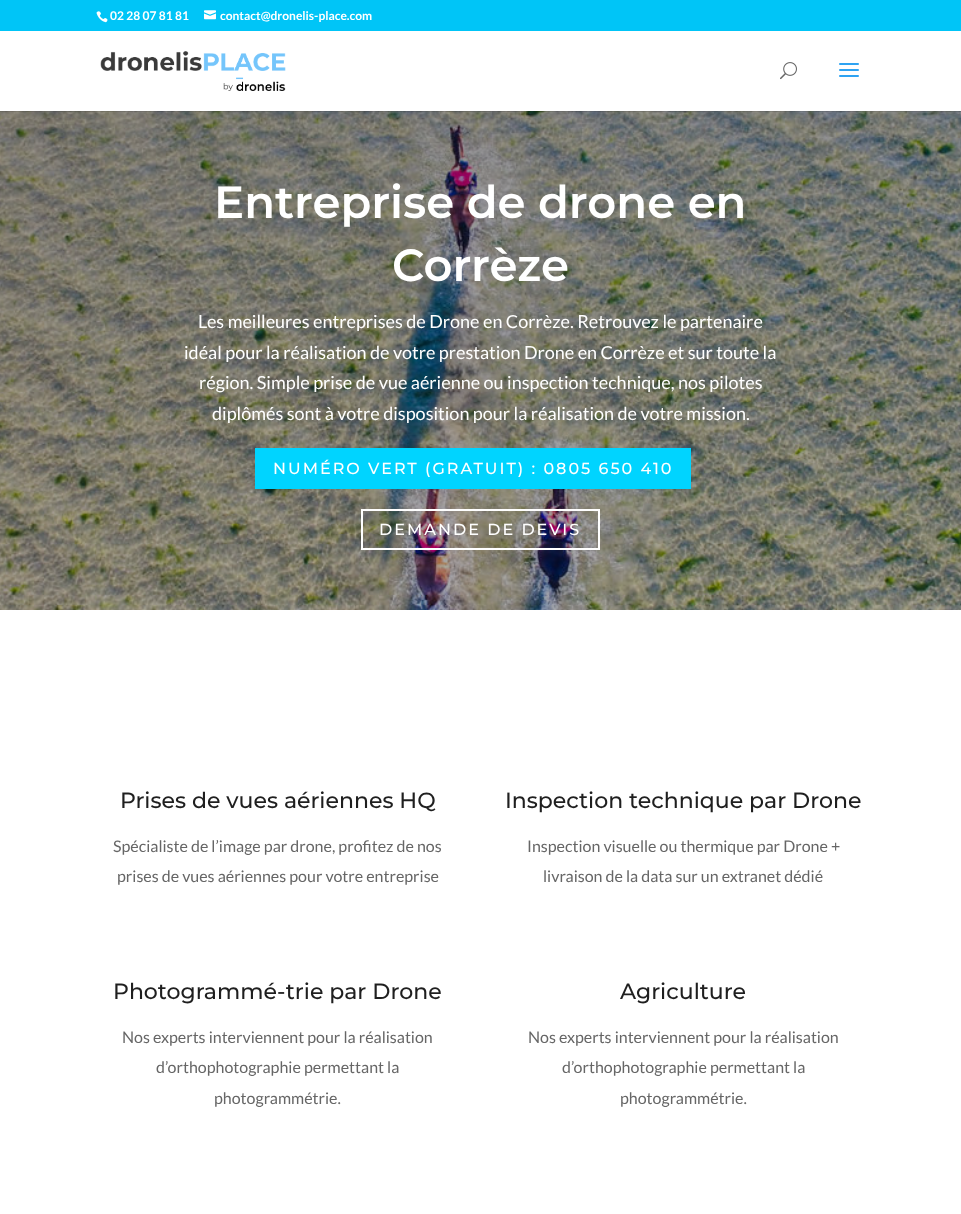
async function draw(canvas) {
  canvas.width = 961
  canvas.height = 1214
  const ctx = canvas.getContext('2d')
  ctx.miterLimit = 4
  ctx.fontKerning = 'normal'
  async function loadImage(src) {
    const img = new Image()
    img.src = src
    await img.decode()
    return img
  }

  ctx.fillStyle = '#fff'
  ctx.fillRect(0, 0, 961, 1214)
  ctx.fillStyle = '#00c5f7'
  ctx.fillRect(0, 0, 961, 31)
  ctx.drawImage(await loadImage('image0.png'), 96, 11, 12, 12)
  ctx.font = 'bold 12px Lato'
  ctx.fillStyle = '#fff'
  ctx.fillText('02 28 07 81 81', 110, 20)
  ctx.drawImage(await loadImage('image1.png'), 204, 10, 12, 10)
  ctx.fillText('contact@dronelis-place.com', 220, 20)
  ctx.drawImage(await loadImage('image5.png'), 0, 111, 961, 499)
  ctx.fillStyle = '#0000001a'
  ctx.fillRect(0, 111, 961, 1)
  ctx.drawImage(await loadImage('image2.png'), 100, 51, 186, 40)
  ctx.drawImage(await loadImage('image3.png'), 780, 62, 17, 18)
  ctx.drawImage(await loadImage('image4.png'), 839, 63, 20, 14)
  ctx.font = '100 45px Montserrat'
  ctx.fillStyle = '#fff'
  ctx.fillText('Entreprise de drone en', 214, 218)
  ctx.fillText('Corrèze', 392, 281)
  ctx.font = '18px Lato'
  ctx.fillText('Les meilleures entreprises de Drone en Corrèze. Retrouvez le partenaire', 198, 328)
  ctx.fillText('idéal pour la réalisation de votre prestation Drone en Corrèze et sur toute la', 184, 359)
  ctx.fillText('région. Simple prise de vue aérienne ou inspection technique, nos pilotes', 199, 389)
  ctx.fillText('diplômés sont à votre disposition pour la réalisation de votre mission.', 212, 420)
  ctx.fillStyle = '#00d4ff'
  ctx.fillRect(255, 448, 436, 41)
  ctx.letterSpacing = '2px'
  ctx.font = '100 16px "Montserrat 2"'
  ctx.fillStyle = '#fff'
  ctx.fillText('NUMÉRO VERT (GRATUIT) : 0805 650 410', 273, 474)
  ctx.strokeStyle = '#fff'
  ctx.lineWidth = 2
  ctx.strokeRect(362, 510, 237, 39)
  ctx.fillText('DEMANDE DE DEVIS', 379, 535)
  ctx.letterSpacing = '0px'
  ctx.font = '100 22px "Montserrat 2"'
  ctx.fillStyle = '#1f1f1f'
  ctx.fillText('Prises de vues aériennes HQ', 120, 808)
  ctx.font = '16px Lato'
  ctx.fillStyle = '#666'
  ctx.fillText('Spécialiste de l’image par drone, profitez de nos', 113, 852)
  ctx.fillText('prises de vues aériennes pour votre entreprise', 117, 882)
  ctx.font = '100 22px "Montserrat 2"'
  ctx.fillStyle = '#1f1f1f'
  ctx.fillText('Inspection technique par Drone', 505, 808)
  ctx.font = '16px Lato'
  ctx.fillStyle = '#666'
  ctx.fillText('Inspection visuelle ou thermique par Drone +', 527, 852)
  ctx.fillText('livraison de la data sur un extranet dédié', 543, 882)
  ctx.font = '100 22px "Montserrat 2"'
  ctx.fillStyle = '#1f1f1f'
  ctx.fillText('Photogrammé-trie par Drone', 113, 999)
  ctx.font = '16px Lato'
  ctx.fillStyle = '#666'
  ctx.fillText('Nos experts interviennent pour la réalisation', 122, 1043)
  ctx.fillText('d’orthophotographie permettant la', 156, 1073)
  ctx.fillText('photogrammétrie.', 214, 1104)
  ctx.font = '100 22px "Montserrat 2"'
  ctx.fillStyle = '#1f1f1f'
  ctx.fillText('Agriculture', 620, 999)
  ctx.font = '16px Lato'
  ctx.fillStyle = '#666'
  ctx.fillText('Nos experts interviennent pour la réalisation', 528, 1043)
  ctx.fillText('d’orthophotographie permettant la', 562, 1073)
  ctx.fillText('photogrammétrie.', 620, 1104)
}

draw(document.querySelector('canvas'))
